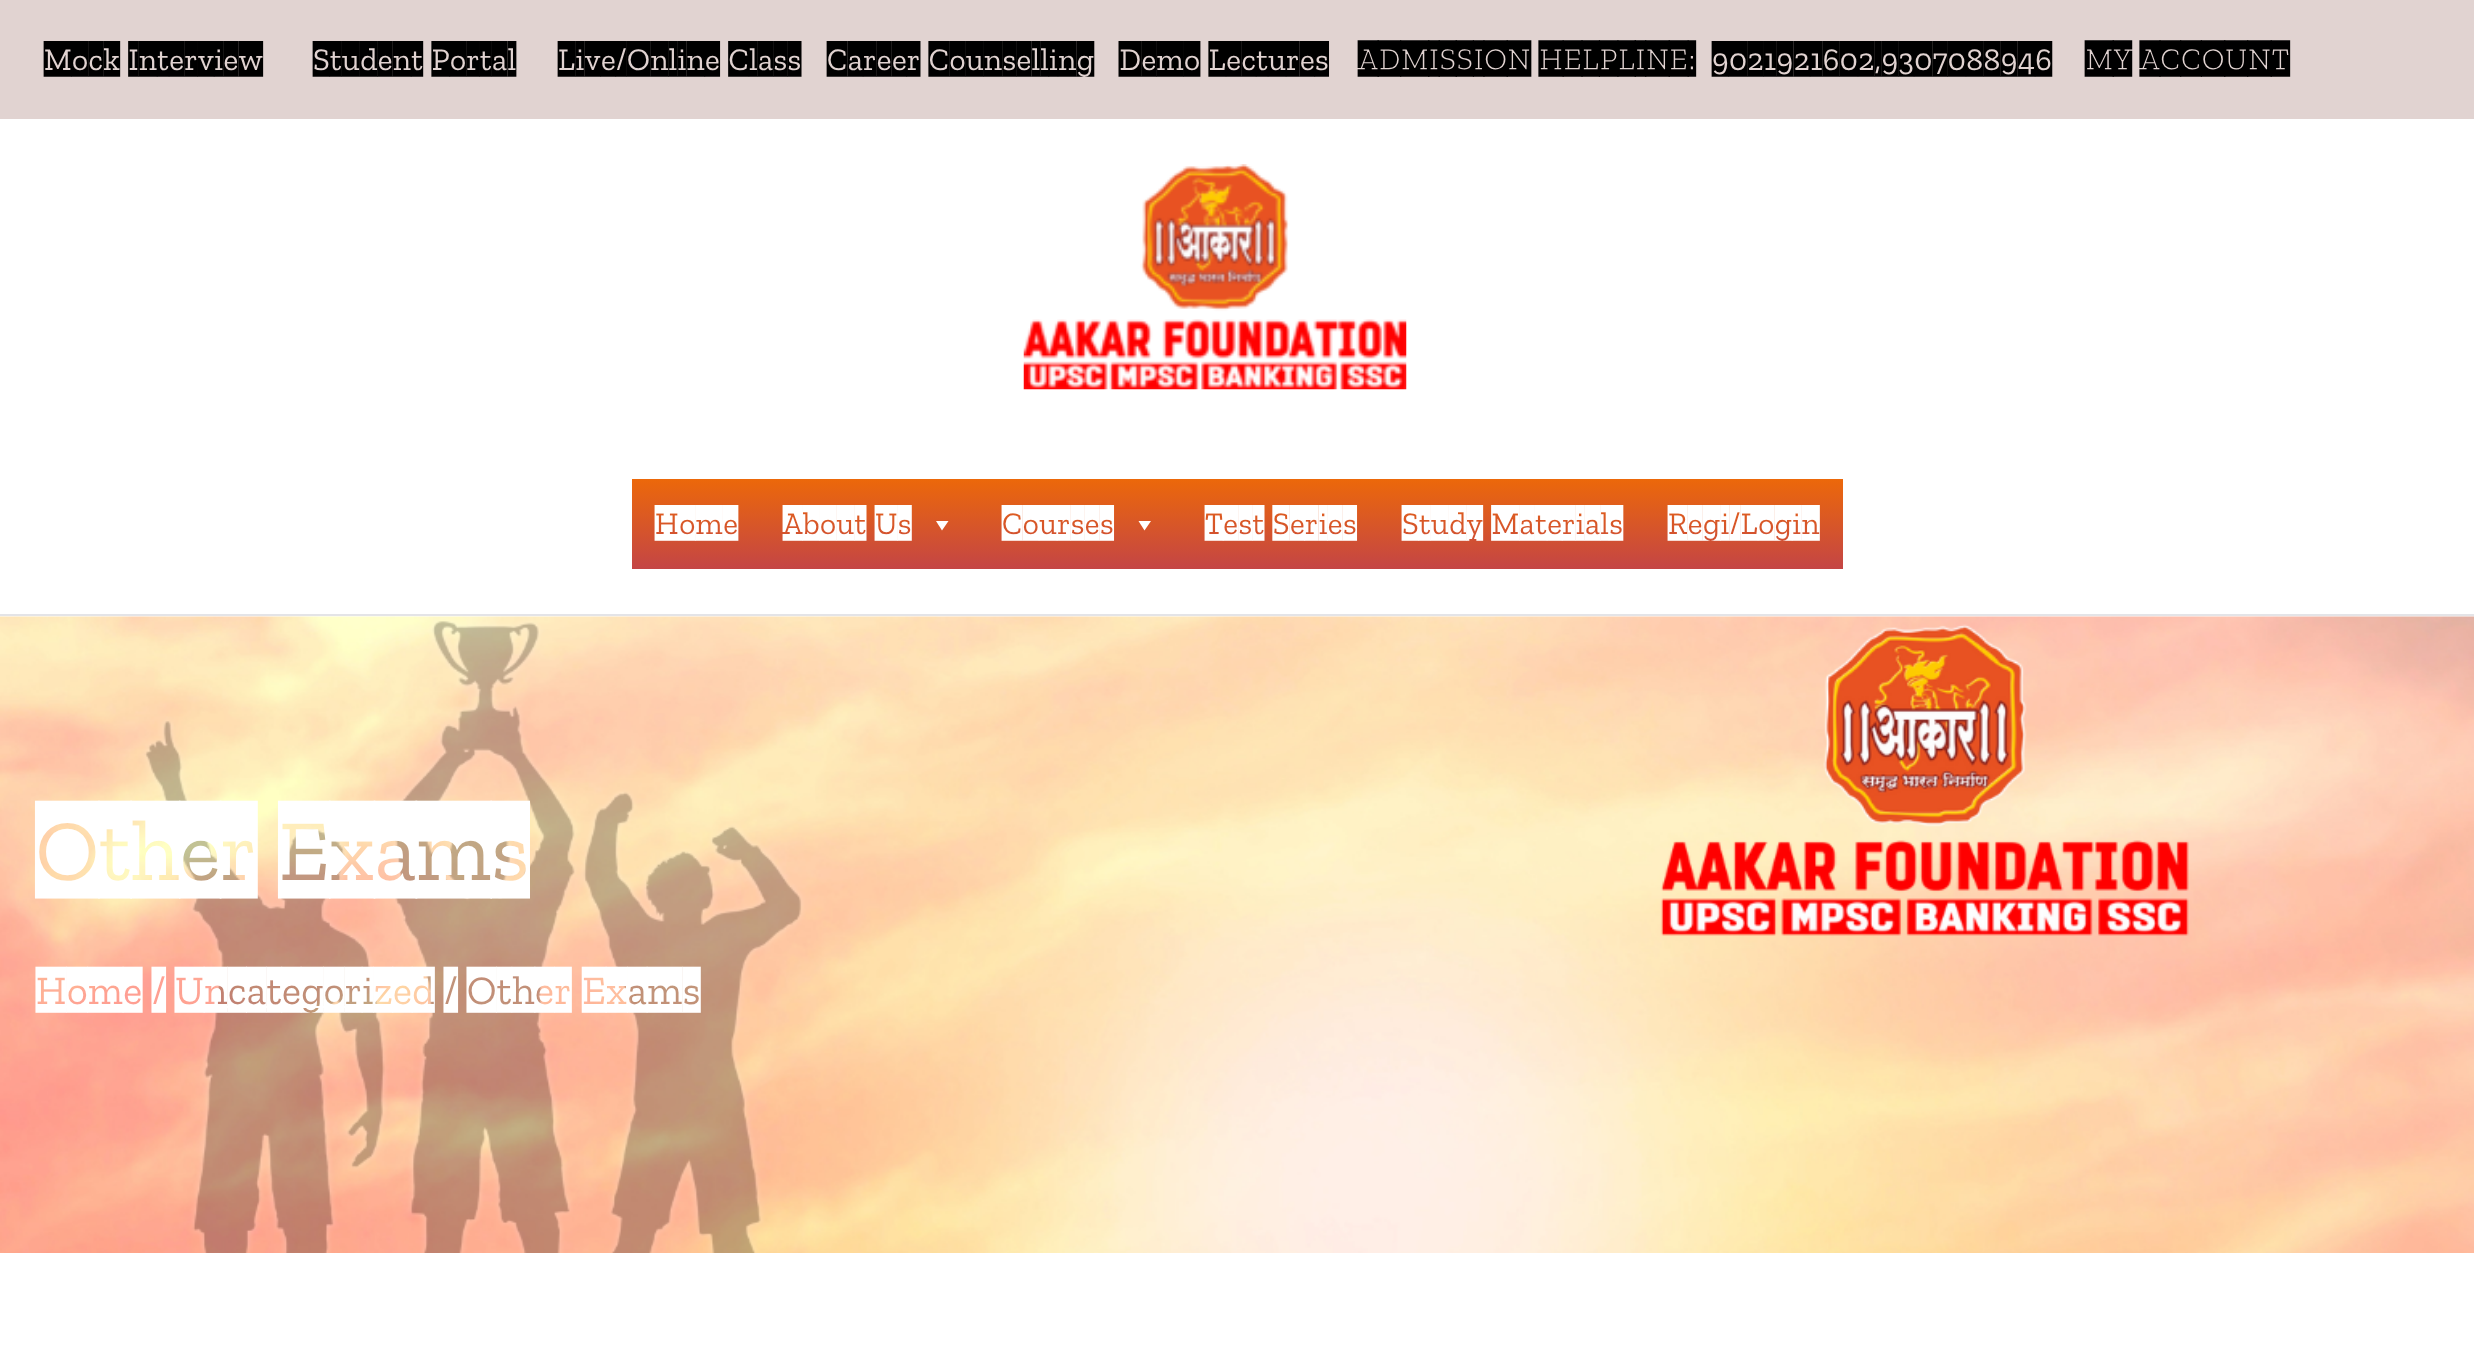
async function draw(canvas) {
  canvas.width = 2474
  canvas.height = 1355
  const ctx = canvas.getContext('2d')
  ctx.miterLimit = 4
  ctx.fontKerning = 'normal'
  async function loadImage(src) {
    const img = new Image()
    img.src = src
    await img.decode()
    return img
  }
  let gradient

  ctx.fillStyle = '#fafafa'
  ctx.fillRect(0, 0, 2474, 1355)
  ctx.fillStyle = '#e4e4e7'
  ctx.fillRect(0, 614, 2474, 2)
  ctx.fillStyle = '#e1d3d1'
  ctx.fillRect(0, 0, 2474, 119)
  ctx.letterSpacing = '0.45px'
  ctx.font = '300 31.5px Zilla Slab Highlight'
  ctx.fillStyle = '#000'
  ctx.fillText('Mock Interview', 44, 70)
  ctx.fillText('Student Portal', 313, 70)
  ctx.fillText('Live/Online Class', 558, 70)
  ctx.fillText('Career Counselling', 827, 70)
  ctx.fillText('Demo Lectures', 1119, 70)
  ctx.font = 'bold 31.5px Zilla Slab Highlight'
  ctx.fillText('ADMISSION HELPLINE:', 1358, 70)
  ctx.font = '300 31.5px Zilla Slab Highlight'
  ctx.fillText('9021921602,9307088946', 1712, 70)
  ctx.font = 'bold 31.5px Zilla Slab Highlight'
  ctx.fillText('MY ACCOUNT', 2085, 70)
  ctx.fillStyle = '#fff'
  ctx.fillRect(0, 119, 2474, 495)
  ctx.drawImage(await loadImage('image0.png'), 1023, 164, 384, 226)
  gradient = ctx.createLinearGradient(1238, 479, 1238, 569)
  gradient.addColorStop(0, '#ec680a')
  gradient.addColorStop(1, '#c44545')
  ctx.fillStyle = gradient
  ctx.fillRect(632, 479, 1211, 90)
  ctx.font = '300 31.5px Zilla Slab Highlight'
  ctx.fillStyle = '#fff'
  ctx.fillText('Home', 655, 534)
  ctx.fillText('About Us', 783, 534)
  ctx.beginPath()
  ctx.moveTo(948.5, 521)
  ctx.lineTo(942, 530.5)
  ctx.lineTo(936, 521)
  ctx.closePath()
  ctx.fill()
  ctx.fillText('Courses', 1002, 534)
  ctx.beginPath()
  ctx.moveTo(1151, 521)
  ctx.lineTo(1144.5, 530.5)
  ctx.lineTo(1138.5, 521)
  ctx.closePath()
  ctx.fill()
  ctx.fillText('Test Series', 1205, 534)
  ctx.fillText('Study Materials', 1402, 534)
  ctx.fillText('Regi/Login', 1668, 534)
  ctx.drawImage(await loadImage('image1.png'), 0, 616, 2474, 637)
  ctx.font = '300 86.5px Zilla Slab Highlight'
  ctx.fillText('Other Exams', 36, 880)
  ctx.fillRect(36, 1006, 106, 2)
  ctx.font = '300 40.5px Zilla Slab Highlight'
  ctx.fillText('Home', 36, 1004)
  ctx.fillText('/', 152, 1004)
  ctx.fillRect(176, 1006, 258, 2)
  ctx.fillText('Uncategorized', 175, 1004)
  ctx.fillText('/', 444, 1004)
  ctx.fillText('Other Exams', 467, 1004)
  ctx.fillRect(0, 1253, 2474, 102)
}

draw(document.querySelector('canvas'))
